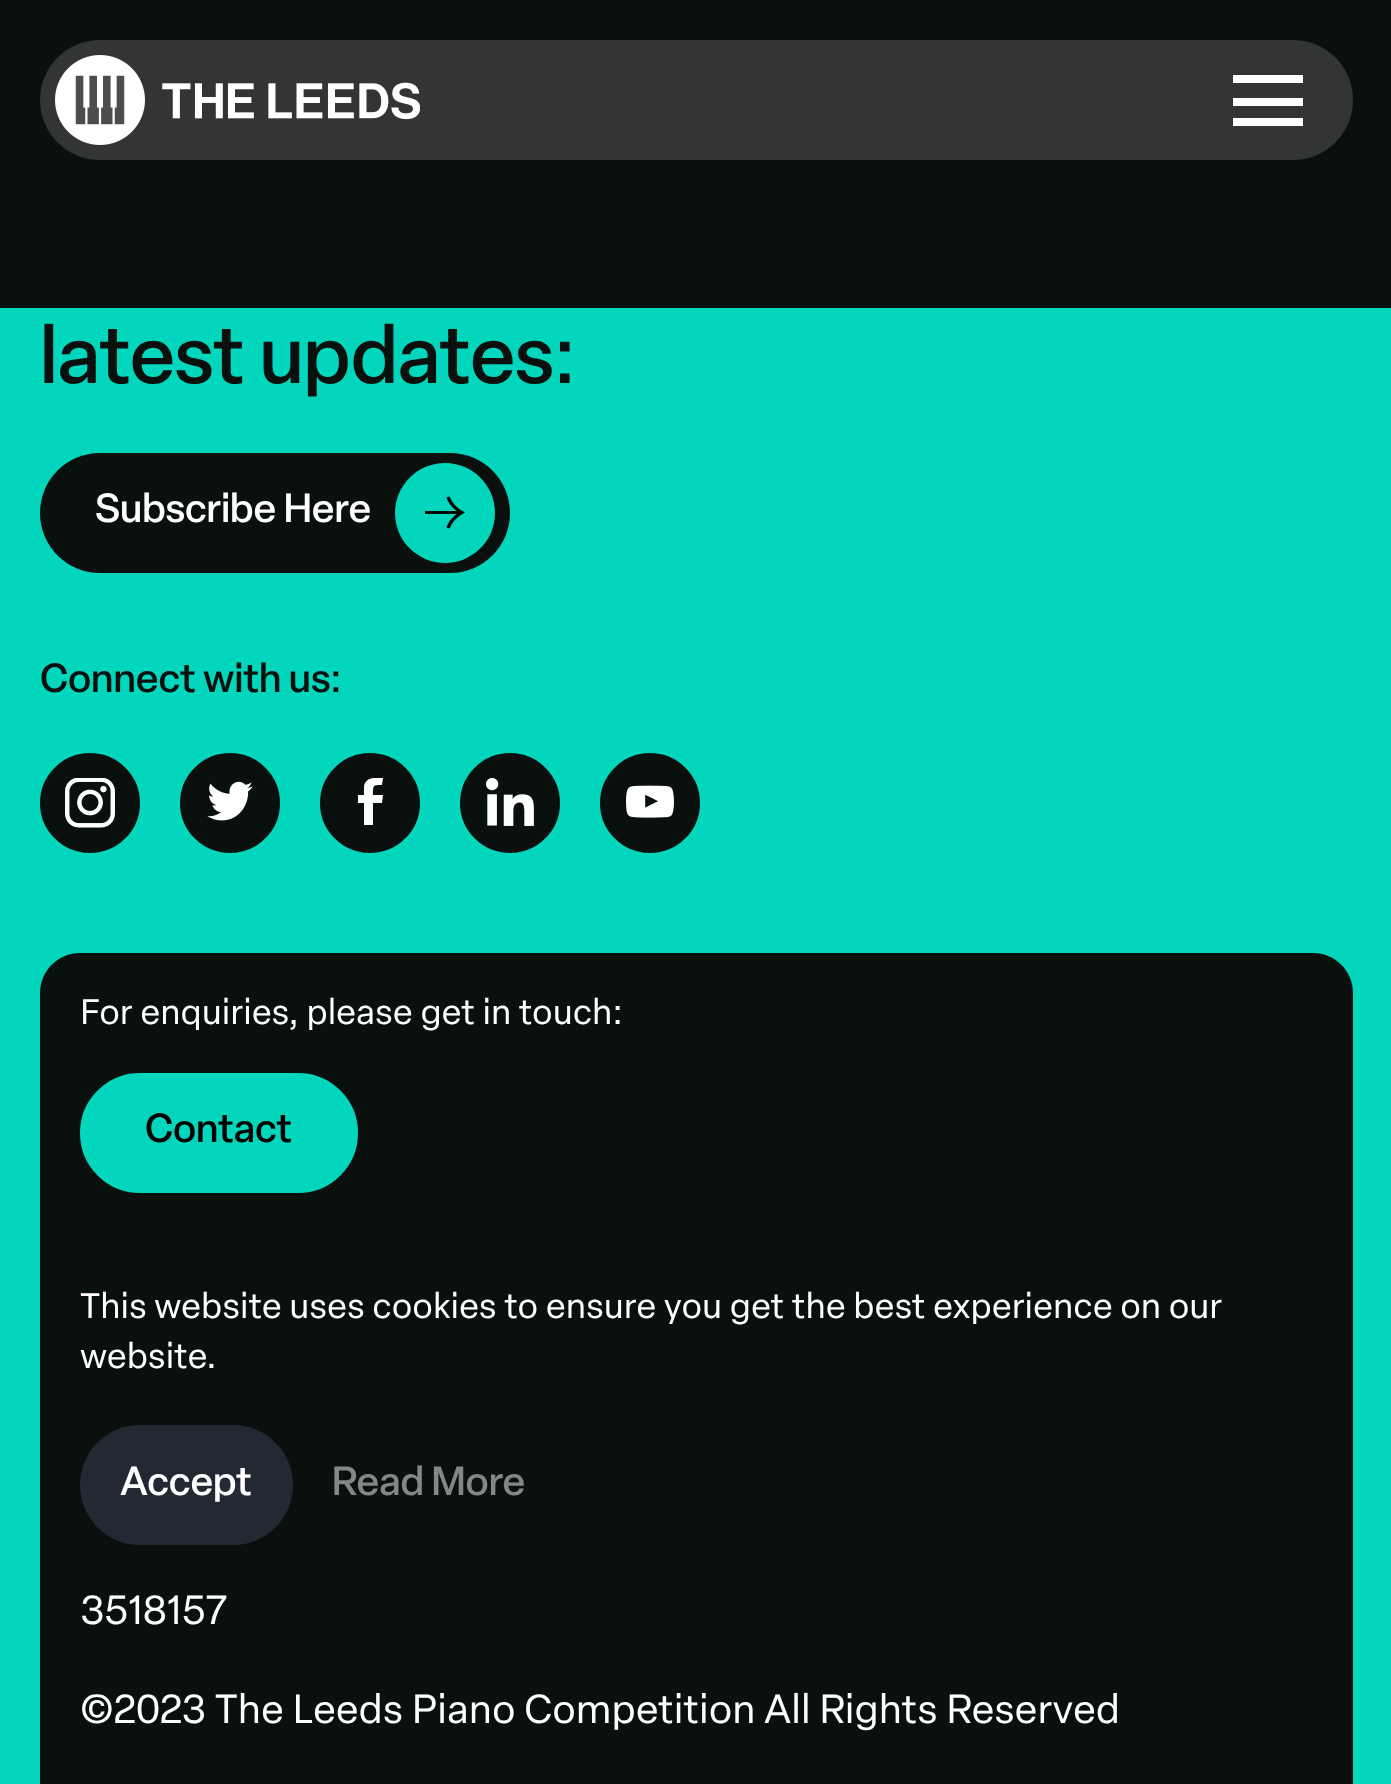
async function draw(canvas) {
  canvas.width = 1391
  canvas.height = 1784
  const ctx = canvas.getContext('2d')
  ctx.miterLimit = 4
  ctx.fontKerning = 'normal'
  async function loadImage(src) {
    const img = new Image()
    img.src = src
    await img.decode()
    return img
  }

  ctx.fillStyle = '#02d6bd'
  ctx.fillRect(0, 0, 1391, 1784)
  ctx.fillStyle = '#0a100d'
  ctx.fillRect(0, 0, 1391, 308)
  ctx.fillStyle = '#323533'
  ctx.beginPath()
  ctx.roundRect(40, 40, 1313, 120, 60)
  ctx.fill()
  ctx.drawImage(await loadImage('image0.png'), 55, 55, 365, 90)
  ctx.fillStyle = '#fff'
  ctx.fillRect(1233, 75, 70, 8)
  ctx.fillRect(1233, 98, 70, 8)
  ctx.fillRect(1233, 118, 70, 8)
  ctx.font = '500 80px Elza'
  ctx.fillStyle = '#0a100d'
  ctx.fillText('latest updates:', 40, 383)
  ctx.beginPath()
  ctx.roundRect(40, 453, 470, 120, 60)
  ctx.fill()
  ctx.font = '500 40px Elza'
  ctx.fillStyle = '#fff'
  ctx.fillText('Subscribe Here', 95, 522)
  ctx.fillStyle = '#02d6bd'
  ctx.beginPath()
  ctx.arc(445, 513, 50, 0, 2 * Math.PI)
  ctx.fill()
  ctx.drawImage(await loadImage('image1.png'), 425, 496, 40, 33)
  ctx.fillStyle = '#0a100d'
  ctx.fillText('Connect with us:', 40, 692)
  ctx.beginPath()
  ctx.arc(90, 803, 47.5, 0, 2 * Math.PI)
  ctx.fill()
  ctx.strokeStyle = '#0a100d'
  ctx.lineWidth = 5
  ctx.stroke()
  ctx.drawImage(await loadImage('image2.png'), 65, 778, 50, 50)
  ctx.beginPath()
  ctx.arc(230, 803, 47.5, 0, 2 * Math.PI)
  ctx.fill()
  ctx.stroke()
  ctx.drawImage(await loadImage('image3.png'), 207, 781, 46, 40)
  ctx.beginPath()
  ctx.arc(370, 803, 47.5, 0, 2 * Math.PI)
  ctx.fill()
  ctx.stroke()
  ctx.save()
  ctx.beginPath()
  ctx.rect(345, 778, 50, 50)
  ctx.clip()
  ctx.fillStyle = '#fff'
  ctx.beginPath()
  ctx.moveTo(364, 825)
  ctx.lineTo(364, 803)
  ctx.lineTo(358, 803)
  ctx.lineTo(358, 795)
  ctx.lineTo(364, 795)
  ctx.lineTo(364, 786)
  ctx.bezierCurveTo(366, 777, 376, 777, 383, 778)
  ctx.lineTo(382, 785)
  ctx.bezierCurveTo(373, 785, 373, 785, 373, 795)
  ctx.lineTo(383, 795)
  ctx.lineTo(382, 803)
  ctx.lineTo(373, 803)
  ctx.lineTo(373, 825)
  ctx.closePath()
  ctx.fill()
  ctx.restore()
  ctx.beginPath()
  ctx.arc(510, 803, 47.5, 0, 2 * Math.PI)
  ctx.fill()
  ctx.stroke()
  ctx.drawImage(await loadImage('image4.png'), 486, 778, 48, 48)
  ctx.beginPath()
  ctx.arc(650, 803, 47.5, 0, 2 * Math.PI)
  ctx.fill()
  ctx.stroke()
  ctx.drawImage(await loadImage('image5.png'), 626, 785, 48, 33)
  ctx.beginPath()
  ctx.moveTo(80, 953)
  ctx.lineTo(1313, 953)
  ctx.bezierCurveTo(1335, 953, 1353, 971, 1353, 993)
  ctx.lineTo(1353, 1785)
  ctx.lineTo(40, 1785)
  ctx.lineTo(40, 993)
  ctx.bezierCurveTo(40, 971, 58, 953, 80, 953)
  ctx.closePath()
  ctx.fill()
  ctx.font = '35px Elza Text'
  ctx.fillStyle = '#fff'
  ctx.fillText('For enquiries, please get in touch:', 80, 1024)
  ctx.fillStyle = '#02d6bd'
  ctx.beginPath()
  ctx.roundRect(82.5, 1075.5, 273, 115, 57.5)
  ctx.fill()
  ctx.strokeStyle = '#02d6bd'
  ctx.stroke()
  ctx.font = '500 40px Elza'
  ctx.fillStyle = '#000'
  ctx.fillText('Contact', 145, 1142)
  ctx.font = '40px Elza Text'
  ctx.fillStyle = '#fff'
  ctx.fillText('3518157', 80, 1624)
  ctx.fillText('©2023 The Leeds Piano Competition All Rights Reserved', 80, 1723)
  ctx.font = '35px Elza Text'
  ctx.fillText('This website uses cookies to ensure you get the best experience on our', 80, 1318)
  ctx.fillText('website.', 80, 1368)
  ctx.fillStyle = '#232932'
  ctx.beginPath()
  ctx.roundRect(80, 1425, 213, 120, 60)
  ctx.fill()
  ctx.font = '500 40px Elza'
  ctx.fillStyle = '#fff'
  ctx.fillText('Accept', 120, 1495)
  ctx.fillStyle = '#848786'
  ctx.fillText('Read More', 332, 1495)
}

draw(document.querySelector('canvas'))
